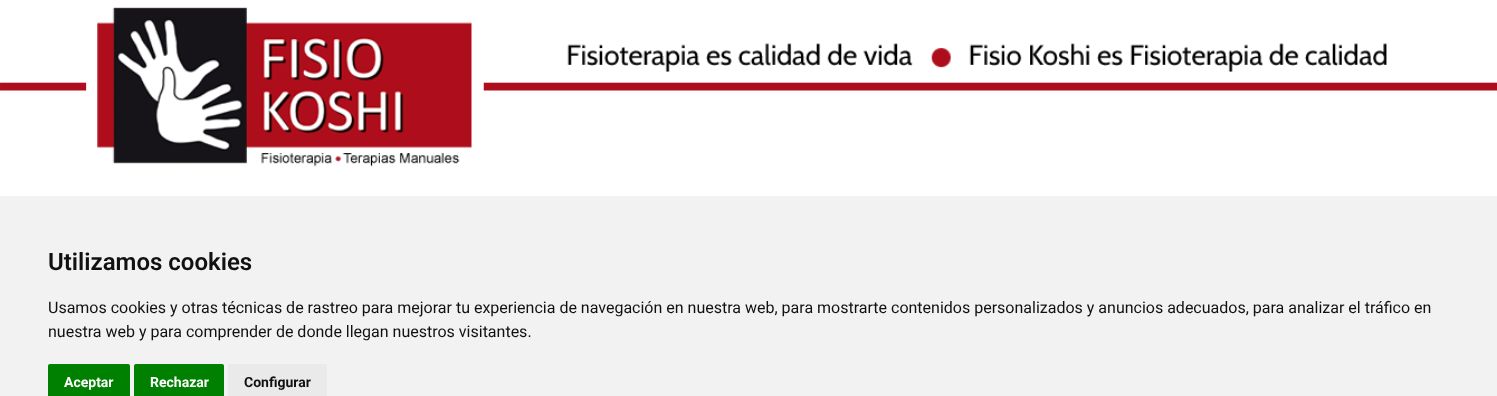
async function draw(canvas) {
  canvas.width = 1497
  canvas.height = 396
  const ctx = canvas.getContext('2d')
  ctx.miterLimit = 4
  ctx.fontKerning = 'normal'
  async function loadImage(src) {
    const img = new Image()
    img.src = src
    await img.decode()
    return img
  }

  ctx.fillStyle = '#fff'
  ctx.fillRect(0, 0, 1497, 396)
  ctx.drawImage(await loadImage('image0.png'), 0, 7, 1497, 160)
  ctx.fillStyle = '#f2f2f2'
  ctx.fillRect(0, 196, 1497, 200)
  ctx.font = '600 24px Roboto'
  ctx.fillStyle = '#111'
  ctx.fillText('Utilizamos cookies', 48, 270)
  ctx.font = '16px Roboto'
  ctx.fillText('Usamos cookies y otras técnicas de rastreo para mejorar tu experiencia de navegación en nuestra web, para mostrarte contenidos personalizados y anuncios adecuados, para analizar el tráfico en', 48, 313)
  ctx.fillText('nuestra web y para comprender de donde llegan nuestros visitantes.', 48, 337)
  ctx.fillStyle = '#008000'
  ctx.beginPath()
  ctx.roundRect(48, 364, 82, 32, [2, 2, 0, 0])
  ctx.fill()
  ctx.font = 'bold 14px Roboto'
  ctx.fillStyle = '#fff'
  ctx.fillText('Aceptar', 64, 387)
  ctx.fillStyle = '#008000'
  ctx.beginPath()
  ctx.roundRect(134, 364, 90, 32, [2, 2, 0, 0])
  ctx.fill()
  ctx.fillStyle = '#fff'
  ctx.fillText('Rechazar', 150, 387)
  ctx.fillStyle = '#eaeaea'
  ctx.beginPath()
  ctx.roundRect(228, 364, 99, 32, [2, 2, 0, 0])
  ctx.fill()
  ctx.fillStyle = '#111'
  ctx.fillText('Configurar', 244, 387)
}

draw(document.querySelector('canvas'))
